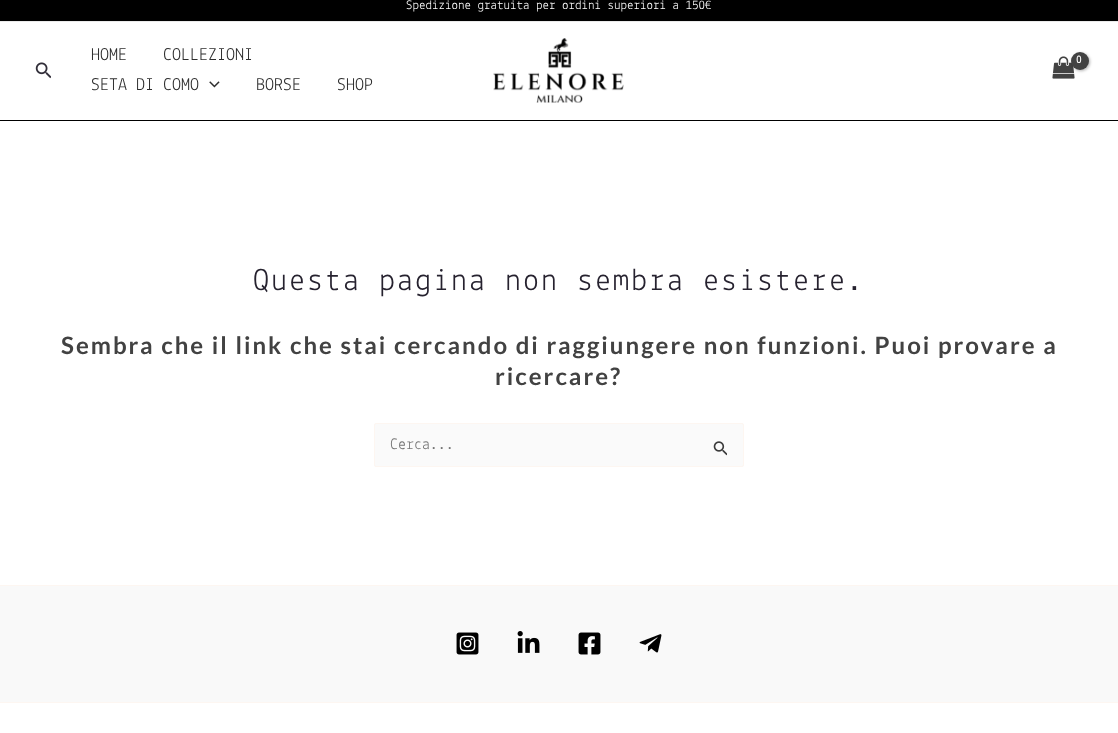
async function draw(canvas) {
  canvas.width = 1118
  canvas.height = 733
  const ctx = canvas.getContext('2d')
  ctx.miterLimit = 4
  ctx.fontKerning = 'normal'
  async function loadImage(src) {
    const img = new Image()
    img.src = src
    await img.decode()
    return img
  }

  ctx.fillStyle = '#fff'
  ctx.fillRect(0, 0, 1118, 733)
  ctx.fillStyle = '#000'
  ctx.fillRect(0, 0, 1118, 21)
  ctx.fillStyle = '#eaeaea'
  ctx.fillRect(0, 21, 1118, 1)
  ctx.font = '13px Lekton'
  ctx.fillStyle = '#fff'
  ctx.fillText('Spedizione gratuita per ordini superiori a 150€', 406, 9)
  ctx.fillStyle = '#000'
  ctx.fillRect(0, 120, 1118, 1)
  ctx.drawImage(await loadImage('image0.png'), 35, 62, 16, 17)
  ctx.font = '18px Lekton'
  ctx.fillStyle = '#2d2d2d'
  ctx.fillText('HOME', 91, 60)
  ctx.fillText('COLLEZIONI', 163, 60)
  ctx.fillText('SETA DI COMO', 91, 90)
  ctx.drawImage(await loadImage('image1.png'), 209, 81, 11, 7)
  ctx.fillText('BORSE', 256, 90)
  ctx.fillText('SHOP', 337, 90)
  ctx.drawImage(await loadImage('image2.png'), 493, 38, 131, 65)
  ctx.drawImage(await loadImage('image3.png'), 1052, 56, 23, 23)
  ctx.fillStyle = '#0000004d'
  ctx.filter = 'blur(1.5px)'
  ctx.beginPath()
  ctx.roundRect(1072, 53, 18, 18, 9)
  ctx.fill()
  ctx.filter = 'none'
  ctx.fillStyle = '#424242'
  ctx.beginPath()
  ctx.arc(1080, 61, 9, 0, 2 * Math.PI)
  ctx.fill()
  ctx.font = 'bold 11px Lekton'
  ctx.fillStyle = '#fff'
  ctx.fillText('0', 1076, 63)
  ctx.letterSpacing = '2px'
  ctx.font = '32px Lekton'
  ctx.fillStyle = '#26222f'
  ctx.fillText('Questa pagina non sembra esistere.', 253, 290)
  ctx.font = 'bold 24px Lato'
  ctx.fillStyle = '#424242'
  ctx.fillText('Sembra che il link che stai cercando di raggiungere non funzioni. Puoi provare a', 61, 354)
  ctx.fillText('ricercare?', 495, 385)
  ctx.fillStyle = '#fafafa'
  ctx.beginPath()
  ctx.roundRect(374.5, 423.5, 369, 43, 1.5)
  ctx.fill()
  ctx.strokeStyle = '#fdf6f1'
  ctx.stroke()
  ctx.letterSpacing = '0px'
  ctx.font = '16px Lekton'
  ctx.fillStyle = '#757575'
  ctx.fillText('Cerca...', 390, 449)
  ctx.drawImage(await loadImage('image4.png'), 713, 441, 14, 15)
  ctx.fillStyle = '#f9f9f9'
  ctx.fillRect(0, 586, 1118, 116)
  ctx.fillStyle = '#fdf6f1'
  ctx.fillRect(0, 585, 1118, 1)
  ctx.drawImage(await loadImage('image5.png'), 456, 632, 23, 23)
  ctx.drawImage(await loadImage('image6.png'), 517, 631, 23, 22)
  ctx.drawImage(await loadImage('image7.png'), 578, 632, 23, 23)
  ctx.drawImage(await loadImage('image8.png'), 639, 634, 23, 19)
  ctx.fillRect(0, 702, 1118, 1)
}

draw(document.querySelector('canvas'))
